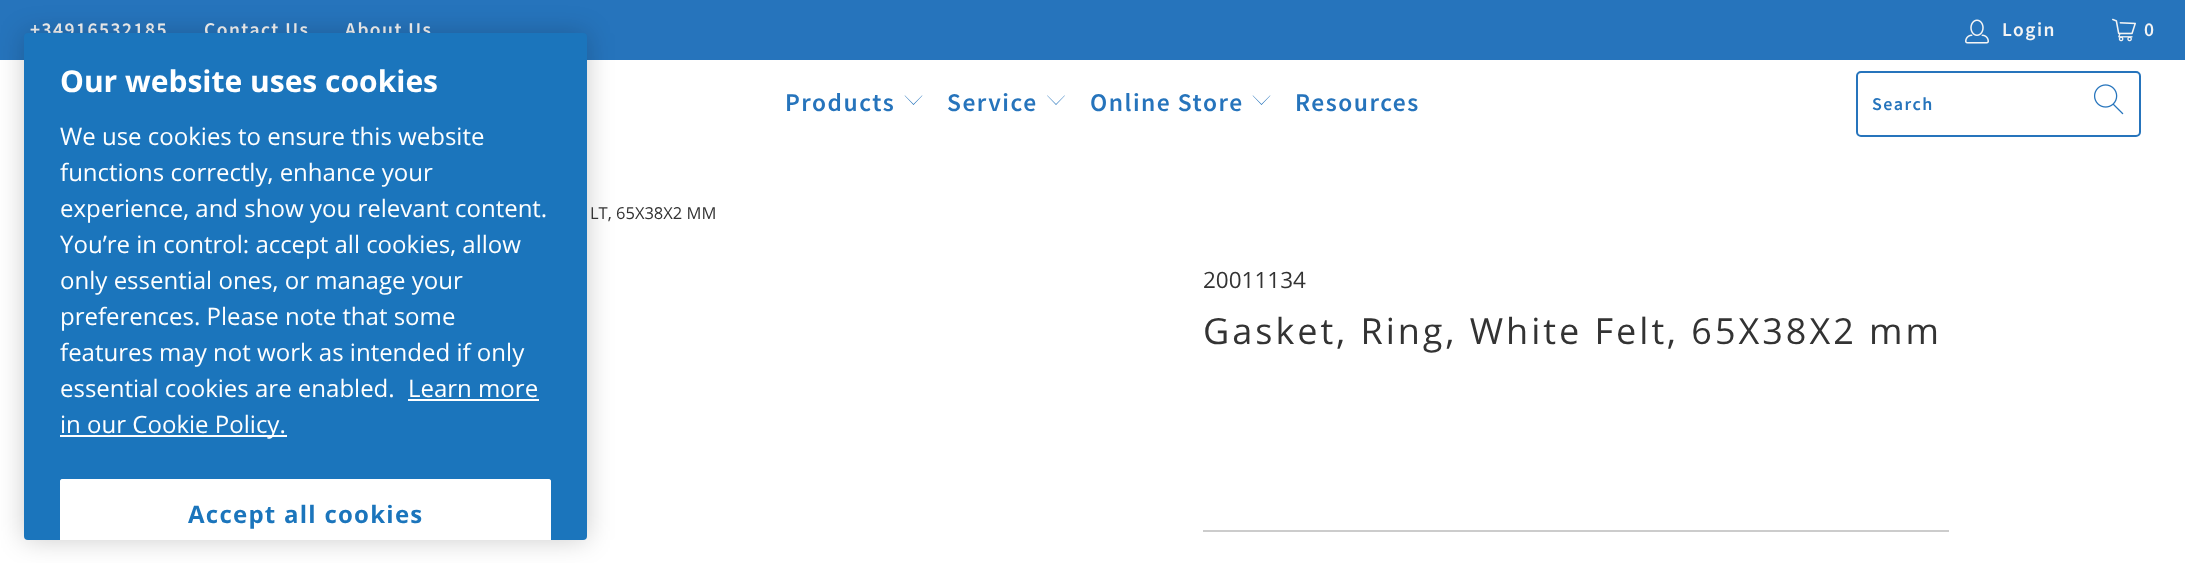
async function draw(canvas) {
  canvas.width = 2185
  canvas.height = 563
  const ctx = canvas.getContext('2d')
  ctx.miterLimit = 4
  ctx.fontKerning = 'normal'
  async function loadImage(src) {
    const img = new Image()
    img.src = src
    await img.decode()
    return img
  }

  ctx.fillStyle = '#fff'
  ctx.fillRect(0, 0, 2185, 563)
  ctx.fillStyle = '#2674bc'
  ctx.fillRect(0, 0, 2185, 60)
  ctx.letterSpacing = '1.5px'
  ctx.font = '600 19.5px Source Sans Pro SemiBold'
  ctx.fillStyle = '#f4f4f4'
  ctx.fillText('+34916532185', 30, 36)
  ctx.fillText('Contact Us', 204, 36)
  ctx.fillText('About Us', 345, 36)
  ctx.drawImage(await loadImage('image0.png'), 1965, 19, 24, 25)
  ctx.fillText('Login', 2002, 36)
  ctx.drawImage(await loadImage('image1.png'), 2112, 18, 24, 24)
  ctx.fillText('0', 2144, 36)
  ctx.font = '600 25.5px Source Sans Pro SemiBold'
  ctx.fillStyle = '#2674bc'
  ctx.fillText('Products', 785, 111)
  ctx.beginPath()
  ctx.moveTo(913.5, 105)
  ctx.lineTo(904.5, 95.5)
  ctx.lineTo(905, 95.5)
  ctx.lineTo(913.5, 104)
  ctx.lineTo(922, 95.5)
  ctx.lineTo(922.5, 95.5)
  ctx.closePath()
  ctx.fill()
  ctx.fillText('Service', 947, 111)
  ctx.beginPath()
  ctx.moveTo(1056, 105)
  ctx.lineTo(1047, 95.5)
  ctx.lineTo(1047.5, 95.5)
  ctx.lineTo(1056, 104)
  ctx.lineTo(1064.5, 95.5)
  ctx.lineTo(1065, 95.5)
  ctx.closePath()
  ctx.fill()
  ctx.fillText('Online Store', 1090, 111)
  ctx.beginPath()
  ctx.moveTo(1261.5, 105)
  ctx.lineTo(1252.5, 95.5)
  ctx.lineTo(1253, 95.5)
  ctx.lineTo(1261.5, 104)
  ctx.lineTo(1270, 95.5)
  ctx.lineTo(1270.5, 95.5)
  ctx.closePath()
  ctx.fill()
  ctx.fillText('Resources', 1295, 111)
  ctx.beginPath()
  ctx.roundRect(1857, 72, 283, 64, 4)
  ctx.strokeStyle = '#2674bc'
  ctx.lineWidth = 2
  ctx.stroke()
  ctx.font = '600 18px Source Sans Pro SemiBold'
  ctx.fillText('Search', 1872, 110)
  ctx.drawImage(await loadImage('image2.png'), 2094, 84, 30, 31)
  ctx.fillStyle = '#00000033'
  ctx.filter = 'blur(13.5px)'
  ctx.beginPath()
  ctx.roundRect(24, 33, 563, 507, 4)
  ctx.fill()
  ctx.filter = 'none'
  ctx.fillStyle = '#1b75bc'
  ctx.beginPath()
  ctx.roundRect(24, 33, 563, 507, 4)
  ctx.fill()
  ctx.letterSpacing = '0px'
  ctx.font = 'bold 30px Open Sans'
  ctx.fillStyle = '#fff'
  ctx.fillText('Our website uses cookies', 60, 92)
  ctx.font = '24px Open Sans'
  ctx.fillText('We use cookies to ensure this website', 60, 145)
  ctx.fillText('functions correctly, enhance your', 60, 181)
  ctx.fillText('experience, and show you relevant content.', 60, 217)
  ctx.fillText('You’re in control: accept all cookies, allow', 60, 253)
  ctx.fillText('only essential ones, or manage your', 60, 289)
  ctx.fillText('preferences. Please note that some', 60, 325)
  ctx.fillText('features may not work as intended if only', 60, 361)
  ctx.fillText('essential cookies are enabled.', 60, 397)
  ctx.fillText('Learn more', 408, 397)
  ctx.fillRect(408, 399, 131, 2)
  ctx.fillRect(60, 435, 227, 2)
  ctx.fillText('in our Cookie Policy.', 60, 433)
  ctx.beginPath()
  ctx.roundRect(60, 479, 491, 61, [3, 3, 0, 0])
  ctx.fill()
  ctx.beginPath()
  ctx.moveTo(63, 479)
  ctx.bezierCurveTo(61, 479, 60, 480, 60, 482)
  ctx.lineTo(60, 540)
  ctx.lineTo(62, 540)
  ctx.lineTo(62, 482)
  ctx.bezierCurveTo(62, 481, 62, 481, 63, 481)
  ctx.lineTo(548, 481)
  ctx.bezierCurveTo(549, 481, 549, 481, 549, 482)
  ctx.lineTo(549, 540)
  ctx.lineTo(551, 540)
  ctx.lineTo(551, 482)
  ctx.bezierCurveTo(551, 480, 550, 479, 548, 479)
  ctx.closePath()
  ctx.fill()
  ctx.letterSpacing = '1.25px'
  ctx.font = 'bold 24px Open Sans'
  ctx.fillStyle = '#1b75bc'
  ctx.fillText('Accept all cookies', 188, 523)
  ctx.letterSpacing = '0px'
  ctx.font = '16.5px Open Sans'
  ctx.fillStyle = '#333'
  ctx.fillText('LT, 65X38X2 MM', 590, 219)
  ctx.font = '22.5px Open Sans'
  ctx.fillText('20011134', 1203, 288)
  ctx.letterSpacing = '3px'
  ctx.font = '36px Open Sans'
  ctx.fillText('Gasket, Ring, White Felt, 65X38X2 mm', 1203, 344)
  ctx.fillStyle = '#ccc'
  ctx.fillRect(1203, 530, 746, 2)
}

draw(document.querySelector('canvas'))
